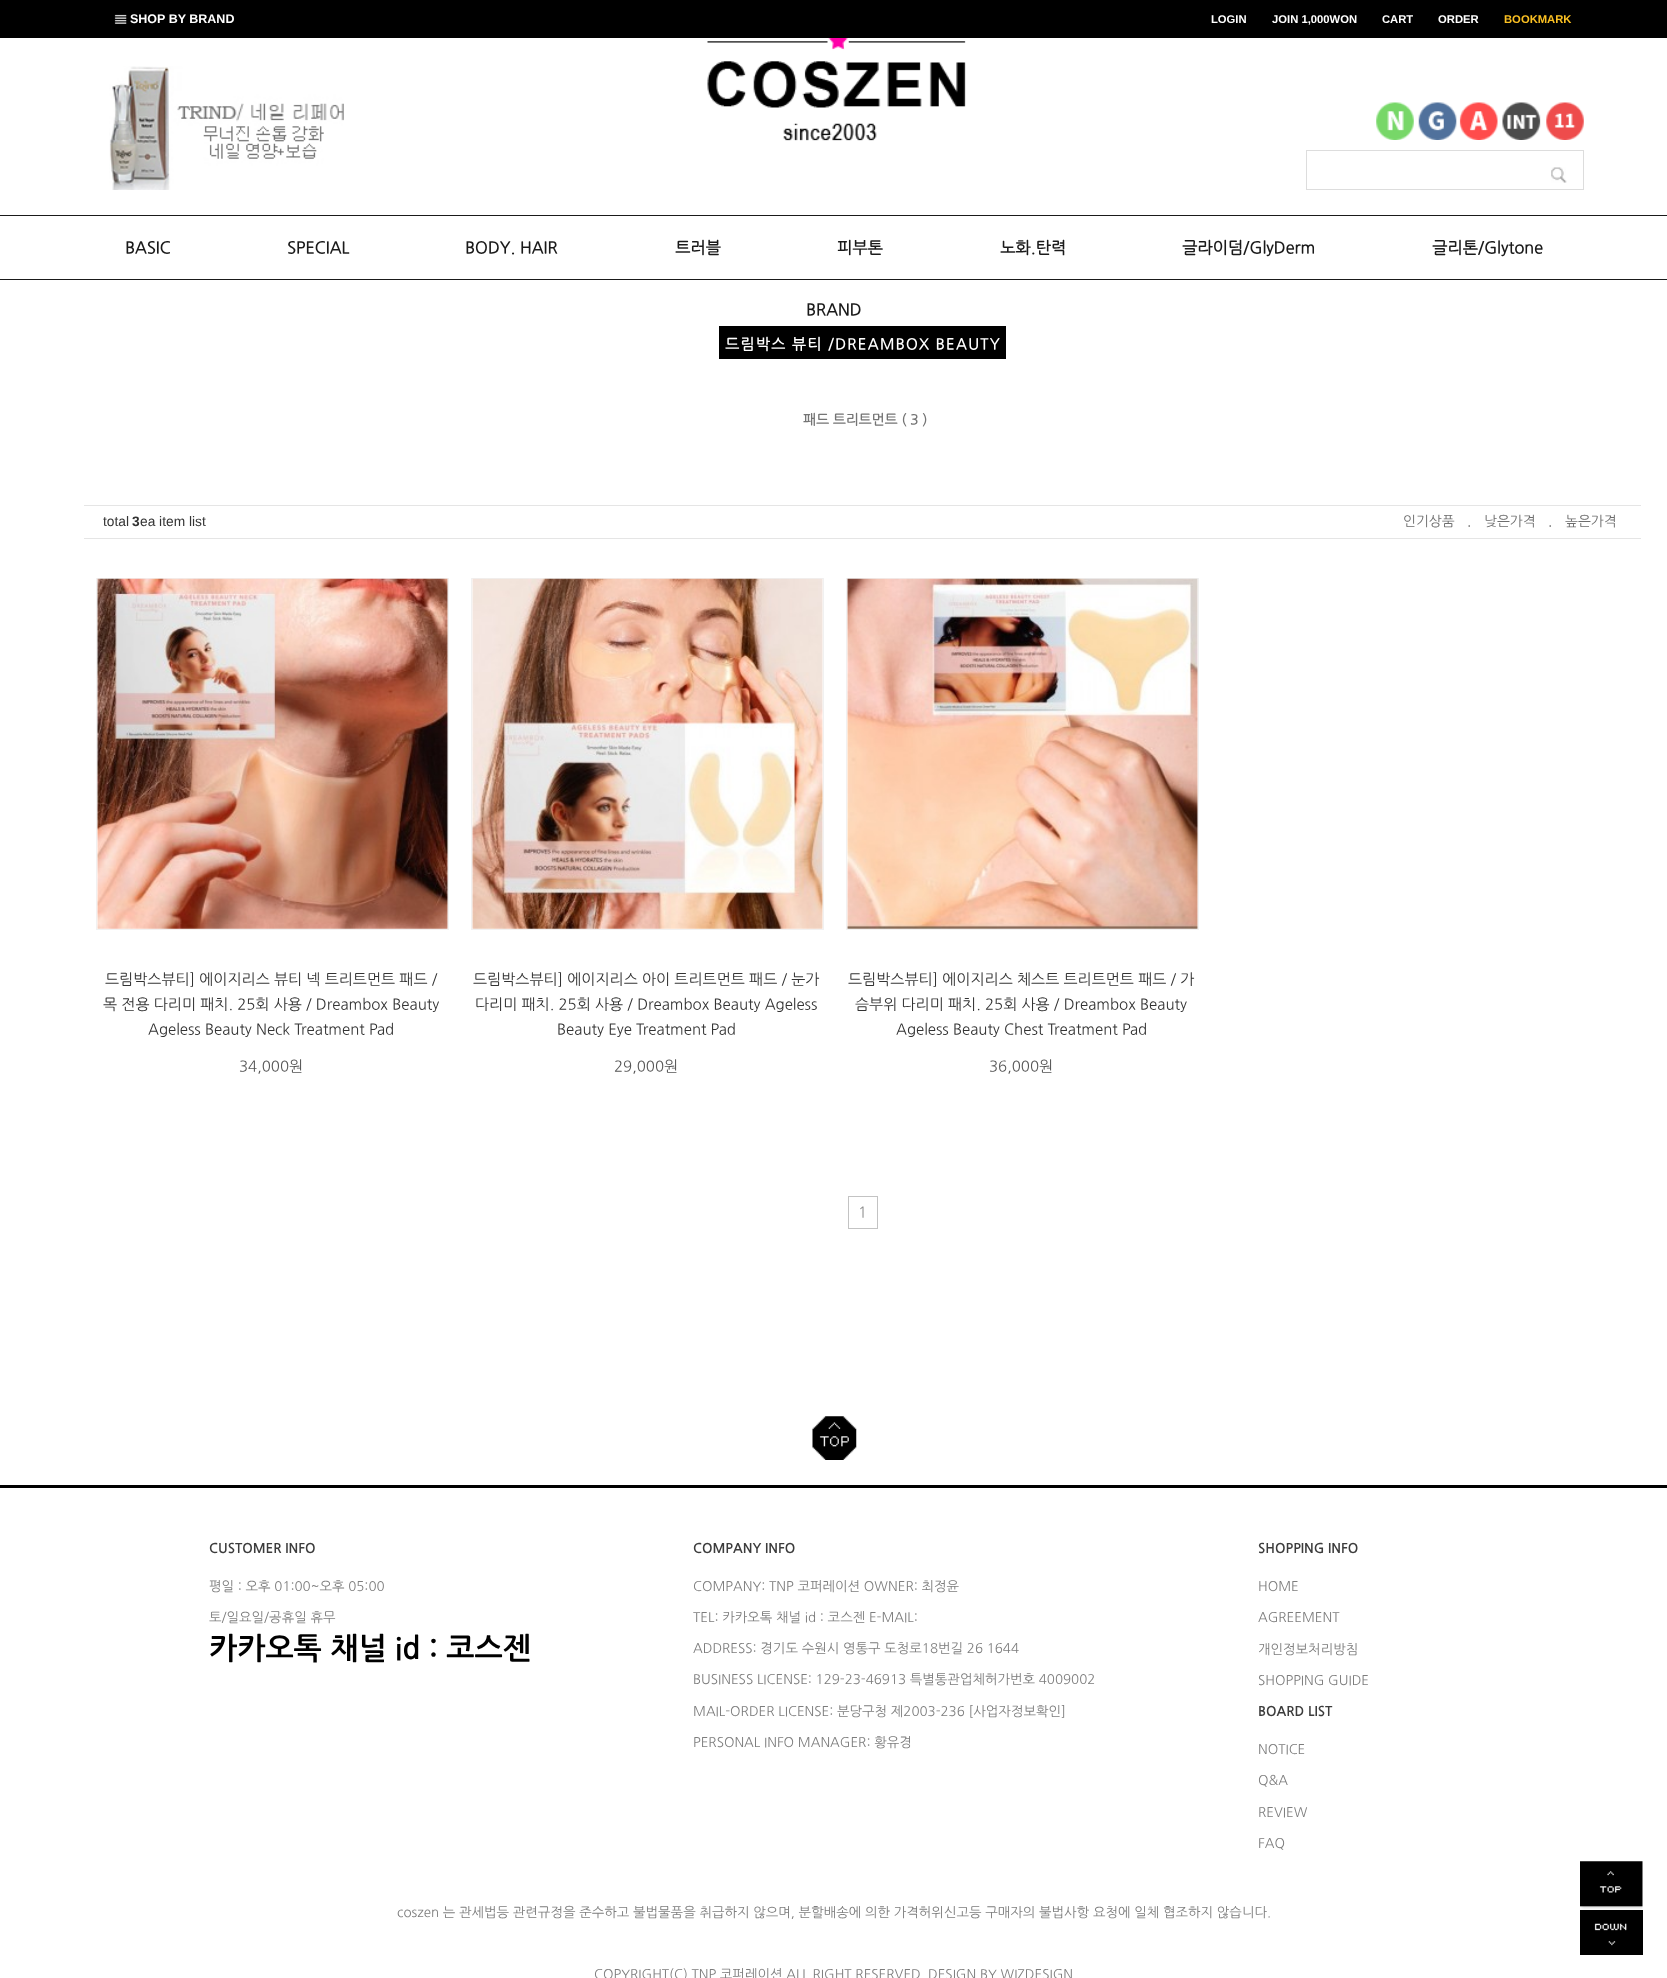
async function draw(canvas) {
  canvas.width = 1667
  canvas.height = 1978
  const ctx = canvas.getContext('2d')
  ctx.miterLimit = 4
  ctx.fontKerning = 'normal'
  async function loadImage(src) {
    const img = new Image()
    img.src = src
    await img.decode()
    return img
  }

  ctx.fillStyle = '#fff'
  ctx.fillRect(0, 0, 1667, 1978)
  ctx.fillStyle = '#000'
  ctx.fillRect(0, 0, 1667, 38)
  ctx.drawImage(await loadImage('image0.png'), 114, 14, 13, 10)
  ctx.font = 'bold 12.5px Liberation Sans'
  ctx.fillStyle = '#fff'
  ctx.fillText('SHOP BY BRAND', 130, 23)
  ctx.font = 'bold 11.25px Liberation Sans'
  ctx.fillText('LOGIN', 1211, 23)
  ctx.fillText('JOIN 1,000WON', 1272, 23)
  ctx.fillText('CART', 1382, 23)
  ctx.fillText('ORDER', 1438, 23)
  ctx.fillStyle = '#fbc022'
  ctx.fillText('BOOKMARK', 1504, 23)
  ctx.drawImage(await loadImage('image1.png'), 109, 66, 235, 124)
  ctx.drawImage(await loadImage('image2.png'), 707, 38, 259, 103)
  ctx.drawImage(await loadImage('image3.png'), 1376, 102, 208, 38)
  ctx.strokeStyle = '#ddd'
  ctx.strokeRect(1306.5, 150.5, 277, 39)
  ctx.drawImage(await loadImage('image4.png'), 1551, 167, 16, 16)
  ctx.fillStyle = '#1a1a1a'
  ctx.fillRect(0, 215, 1667, 1)
  ctx.fillRect(0, 279, 1667, 1)
  ctx.font = 'bold 16.25px NanumGothic'
  ctx.fillText('BASIC', 125, 253)
  ctx.fillText('SPECIAL', 287, 253)
  ctx.fillText('BODY. HAIR', 465, 253)
  ctx.fillText('트러블', 675, 253)
  ctx.fillText('피부톤', 837, 253)
  ctx.fillText('노화.탄력', 1000, 253)
  ctx.fillText('글라이덤/GlyDerm', 1182, 253)
  ctx.fillText('글리톤/Glytone', 1432, 253)
  ctx.fillText('BRAND', 806, 315)
  ctx.fillStyle = '#000'
  ctx.fillRect(719, 326, 287, 33)
  ctx.letterSpacing = '1.25px'
  ctx.font = 'bold 15px NanumGothic'
  ctx.fillStyle = '#fff'
  ctx.fillText('드림박스 뷰티 /DREAMBOX BEAUTY', 725, 349)
  ctx.letterSpacing = '0px'
  ctx.font = 'bold 13.75px NanumGothic'
  ctx.fillStyle = '#757575'
  ctx.fillText('패드 트리트먼트 ( 3 )', 803, 424)
  ctx.fillStyle = '#e5e5e5'
  ctx.fillRect(84, 505, 1557, 1)
  ctx.fillRect(84, 538, 1557, 1)
  ctx.font = '13.75px Liberation Sans'
  ctx.fillStyle = '#333'
  ctx.fillText('total', 103, 526)
  ctx.font = 'bold 13.75px Liberation Sans'
  ctx.fillText('3', 132, 526)
  ctx.font = '13.75px Liberation Sans'
  ctx.fillText('ea item list', 140, 526)
  ctx.font = '13.75px "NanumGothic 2"'
  ctx.fillStyle = '#6d6d6d'
  ctx.fillText('인기상품', 1403, 526)
  ctx.fillStyle = '#333'
  ctx.fillText('.', 1467, 526)
  ctx.fillStyle = '#6d6d6d'
  ctx.fillText('낮은가격', 1484, 526)
  ctx.fillStyle = '#333'
  ctx.fillText('.', 1548, 526)
  ctx.fillStyle = '#6d6d6d'
  ctx.fillText('높은가격', 1565, 526)
  ctx.strokeStyle = '#f1f1f1'
  ctx.strokeRect(96.5, 578.5, 352, 351)
  ctx.drawImage(await loadImage('image5.png'), 97, 578, 351, 351)
  ctx.font = '15px NanumGothic'
  ctx.fillStyle = '#333'
  ctx.fillText('드림박스뷰티] 에이지리스 뷰티 넥 트리트먼트 패드 /', 105, 984)
  ctx.fillText('목 전용 다리미 패치. 25회 사용 / Dreambox Beauty', 103, 1009)
  ctx.fillText('Ageless Beauty Neck Treatment Pad', 148, 1034)
  ctx.fillStyle = '#555'
  ctx.fillText('34,000원', 239, 1071)
  ctx.strokeRect(471.5, 578.5, 352, 351)
  ctx.drawImage(await loadImage('image6.png'), 472, 578, 351, 351)
  ctx.fillStyle = '#333'
  ctx.fillText('드림박스뷰티] 에이지리스 아이 트리트먼트 패드 / 눈가', 473, 984)
  ctx.fillText('다리미 패치. 25회 사용 / Dreambox Beauty Ageless', 475, 1009)
  ctx.fillText('Beauty Eye Treatment Pad', 557, 1034)
  ctx.fillStyle = '#555'
  ctx.fillText('29,000원', 614, 1071)
  ctx.strokeRect(846.5, 578.5, 352, 351)
  ctx.drawImage(await loadImage('image7.png'), 847, 578, 351, 351)
  ctx.fillStyle = '#333'
  ctx.fillText('드림박스뷰티] 에이지리스 체스트 트리트먼트 패드 / 가', 848, 984)
  ctx.fillText('슴부위 다리미 패치. 25회 사용 / Dreambox Beauty', 855, 1009)
  ctx.fillText('Ageless Beauty Chest Treatment Pad', 896, 1034)
  ctx.fillStyle = '#555'
  ctx.fillText('36,000원', 989, 1071)
  ctx.strokeStyle = '#c3c3c3'
  ctx.strokeRect(848.5, 1196.5, 29, 32)
  ctx.fillStyle = '#8e8e8e'
  ctx.fillText('1', 858, 1217)
  ctx.drawImage(await loadImage('image8.png'), 1580, 1861, 63, 49)
  ctx.drawImage(await loadImage('image9.png'), 1580, 1910, 63, 45)
  ctx.fillStyle = '#000'
  ctx.fillRect(0, 1485, 1667, 3)
  ctx.drawImage(await loadImage('image10.png'), 812, 1416, 45, 44)
  ctx.font = 'bold 13.33px "NanumGothic 2"'
  ctx.fillStyle = '#3c3c3c'
  ctx.fillText('CUSTOMER INFO', 209, 1553)
  ctx.font = '13.33px "NanumGothic 2"'
  ctx.fillStyle = '#7d7d7d'
  ctx.fillText('평일 : 오후 01:00~오후 05:00', 209, 1591)
  ctx.fillText('토/일요일/공휴일 휴무', 209, 1622)
  ctx.font = 'bold 30px "NanumGothic 2"'
  ctx.fillStyle = '#000'
  ctx.fillText('카카오톡 채널 id : 코스젠', 209, 1659)
  ctx.font = 'bold 13.33px "NanumGothic 2"'
  ctx.fillStyle = '#3c3c3c'
  ctx.fillText('COMPANY INFO', 693, 1553)
  ctx.font = '13.33px "NanumGothic 2"'
  ctx.fillStyle = '#7d7d7d'
  ctx.fillText('COMPANY: TNP 코퍼레이션 OWNER: 최정윤', 693, 1591)
  ctx.fillText('TEL: 카카오톡 채널 id : 코스젠 E-MAIL:', 693, 1622)
  ctx.fillText('ADDRESS: 경기도 수원시 영통구 도청로18번길 26 1644', 693, 1653)
  ctx.fillText('BUSINESS LICENSE: 129-23-46913 특별통관업체허가번호 4009002', 693, 1684)
  ctx.fillText('MAIL-ORDER LICENSE: 분당구청 제2003-236 [사업자정보확인]', 693, 1716)
  ctx.fillText('PERSONAL INFO MANAGER: 황유경', 693, 1747)
  ctx.font = 'bold 13.33px "NanumGothic 2"'
  ctx.fillStyle = '#3c3c3c'
  ctx.fillText('SHOPPING INFO', 1258, 1553)
  ctx.font = '13.33px "NanumGothic 2"'
  ctx.fillStyle = '#7d7d7d'
  ctx.fillText('HOME', 1258, 1591)
  ctx.fillText('AGREEMENT', 1258, 1622)
  ctx.fillText('개인정보처리방침', 1258, 1654)
  ctx.fillText('SHOPPING GUIDE', 1258, 1685)
  ctx.font = 'bold 13.33px "NanumGothic 2"'
  ctx.fillStyle = '#3c3c3c'
  ctx.fillText('BOARD LIST', 1258, 1716)
  ctx.font = '13.33px "NanumGothic 2"'
  ctx.fillStyle = '#7d7d7d'
  ctx.fillText('NOTICE', 1258, 1754)
  ctx.fillText('Q&A', 1258, 1785)
  ctx.fillText('REVIEW', 1258, 1817)
  ctx.fillText('FAQ', 1258, 1848)
  ctx.fillText('coszen 는 관세법등 관련규정을 준수하고 불법물품을 취급하지 않으며, 분할배송에 의한 가격허위신고등 구매자의 불법사항 요청에 일체 협조하지 않습니다.', 397, 1917)
  ctx.fillText('COPYRIGHT(C) TNP 코퍼레이션 ALL RIGHT RESERVED', 594, 1979)
  ctx.fillText('DESIGN BY WIZDESIGN', 928, 1979)
}

draw(document.querySelector('canvas'))
